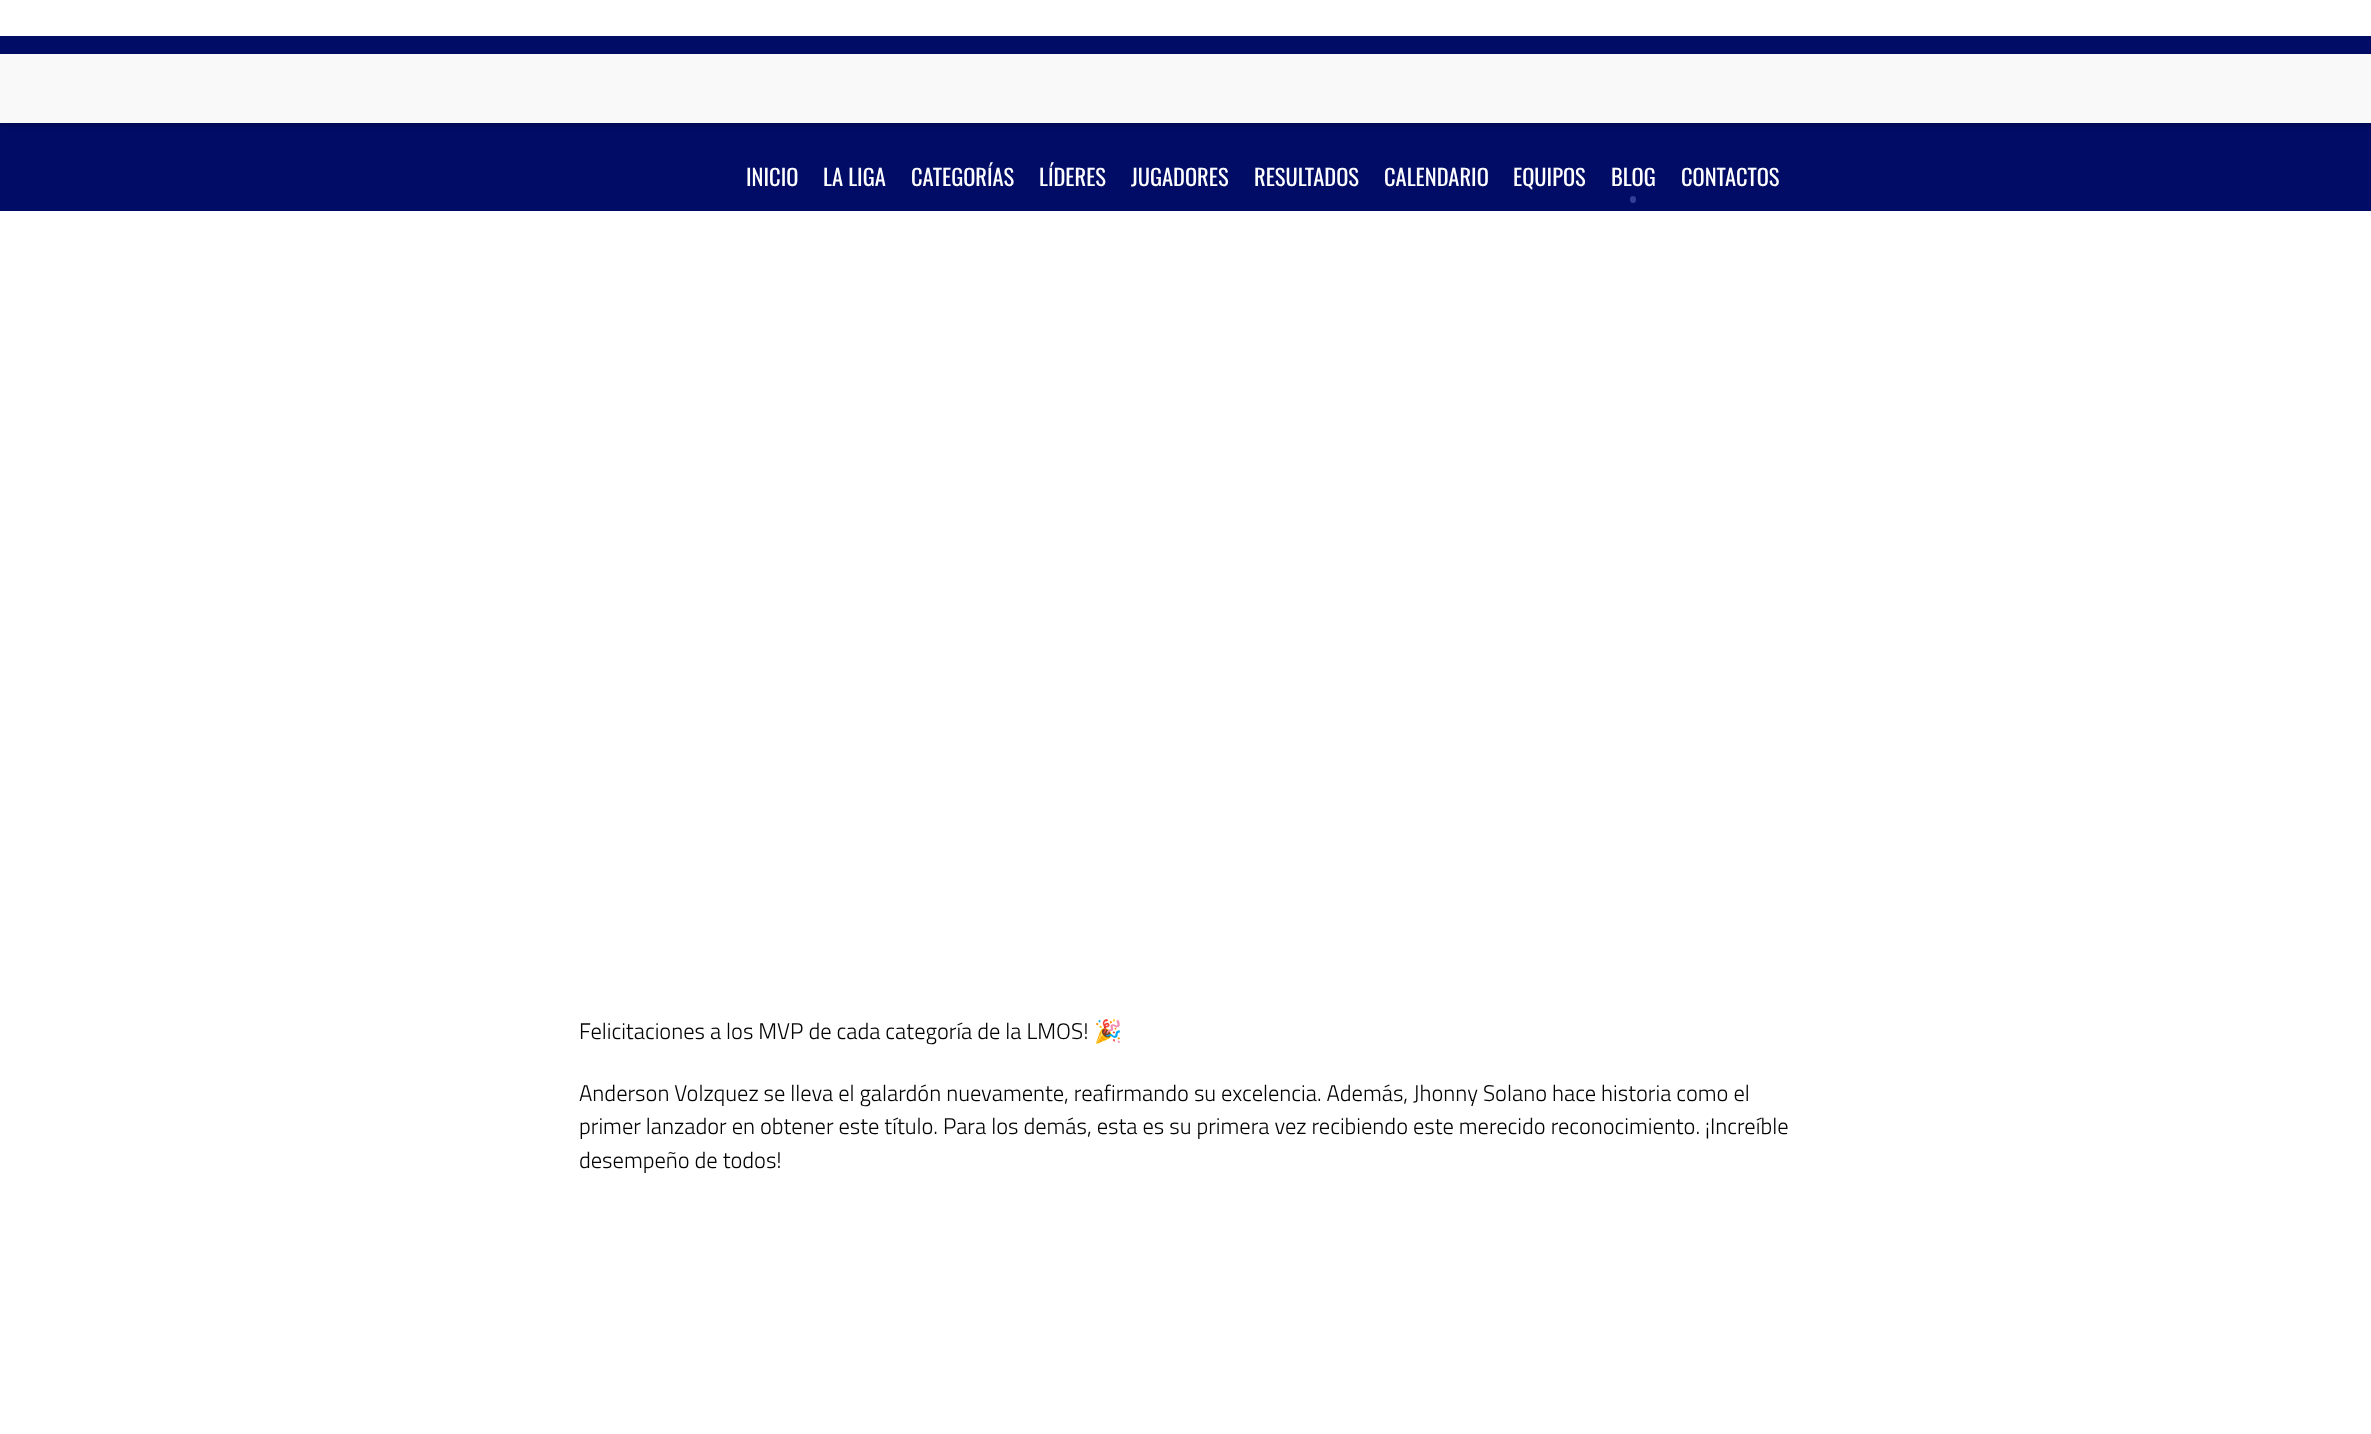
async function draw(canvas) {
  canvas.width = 2371
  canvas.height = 1434
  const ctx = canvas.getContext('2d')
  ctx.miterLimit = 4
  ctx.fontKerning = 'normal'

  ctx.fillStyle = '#fff'
  ctx.fillRect(0, 0, 2371, 1434)
  ctx.fillStyle = '#000c66'
  ctx.fillRect(0, 36, 2371, 175)
  ctx.fillStyle = '#00000040'
  ctx.filter = 'blur(2px)'
  ctx.beginPath()
  ctx.rect(0, 56, 2371, 69)
  ctx.fill()
  ctx.filter = 'none'
  ctx.fillStyle = '#f9f9f9'
  ctx.fillRect(0, 54, 2371, 69)
  ctx.font = '22.5px Oswald'
  ctx.fillStyle = '#fff'
  ctx.fillText('INICIO', 746, 186)
  ctx.fillText('LA LIGA', 823, 186)
  ctx.fillText('CATEGORÍAS', 911, 186)
  ctx.fillText('LÍDERES', 1039, 186)
  ctx.fillText('JUGADORES', 1131, 186)
  ctx.fillText('RESULTADOS', 1254, 186)
  ctx.fillText('CALENDARIO', 1384, 186)
  ctx.fillText('EQUIPOS', 1513, 186)
  ctx.fillText('BLOG', 1611, 186)
  ctx.fillStyle = '#323e98'
  ctx.beginPath()
  ctx.roundRect(1630, 196, 6, 7, 3)
  ctx.fill()
  ctx.fillStyle = '#fff'
  ctx.fillText('CONTACTOS', 1681, 186)
  ctx.font = '300 22.5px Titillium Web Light'
  ctx.fillStyle = '#000'
  ctx.fillText('Felicitaciones a los MVP de cada categoría de la LMOS!', 579, 1039)
  ctx.font = '22.5px Noto Color Emoji'
  ctx.fillText('🎉', 1094, 1039)
  ctx.font = '300 22.5px Titillium Web Light'
  ctx.fillText('Anderson Volzquez se lleva el galardón nuevamente, reafirmando su excelencia. Además, Jhonny Solano hace historia como el', 579, 1101)
  ctx.fillText('primer lanzador en obtener este título. Para los demás, esta es su primera vez recibiendo este merecido reconocimiento. ¡Increíble', 579, 1134)
  ctx.fillText('desempeño de todos!', 579, 1168)
}

draw(document.querySelector('canvas'))
